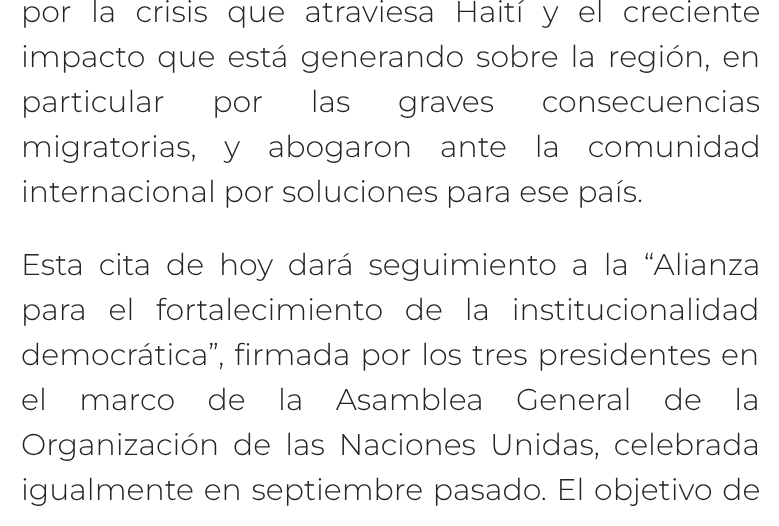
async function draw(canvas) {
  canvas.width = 779
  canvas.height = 526
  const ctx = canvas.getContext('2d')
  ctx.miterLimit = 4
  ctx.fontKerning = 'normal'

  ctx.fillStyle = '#fff'
  ctx.fillRect(0, 0, 779, 526)
  ctx.wordSpacing = '11.5px'
  ctx.font = '300 30px Montserrat'
  ctx.fillStyle = '#212529'
  ctx.fillText('por la crisis que atraviesa Haití y el creciente', 21, 22)
  ctx.wordSpacing = '4.25px'
  ctx.fillText('impacto que está generando sobre la región, en', 21, 67)
  ctx.wordSpacing = '40px'
  ctx.fillText('particular por las graves consecuencias', 21, 112)
  ctx.wordSpacing = '20px'
  ctx.fillText('migratorias, y abogaron ante la comunidad', 21, 157)
  ctx.wordSpacing = '0px'
  ctx.fillText('internacional por soluciones para ese país.', 21, 202)
  ctx.wordSpacing = '7px'
  ctx.fillText('Esta cita de hoy dará seguimiento a la “Alianza', 21, 275)
  ctx.wordSpacing = '14px'
  ctx.fillText('para el fortalecimiento de la institucionalidad', 21, 320)
  ctx.wordSpacing = '2.25px'
  ctx.fillText('democrática”, firmada por los tres presidentes en', 21, 365)
  ctx.wordSpacing = '24.75px'
  ctx.fillText('el marco de la Asamblea General de la', 21, 410)
  ctx.wordSpacing = '6.25px'
  ctx.fillText('Organización de las Naciones Unidas, celebrada', 21, 455)
  ctx.wordSpacing = '2px'
  ctx.fillText('igualmente en septiembre pasado. El objetivo de', 21, 500)
}

draw(document.querySelector('canvas'))
